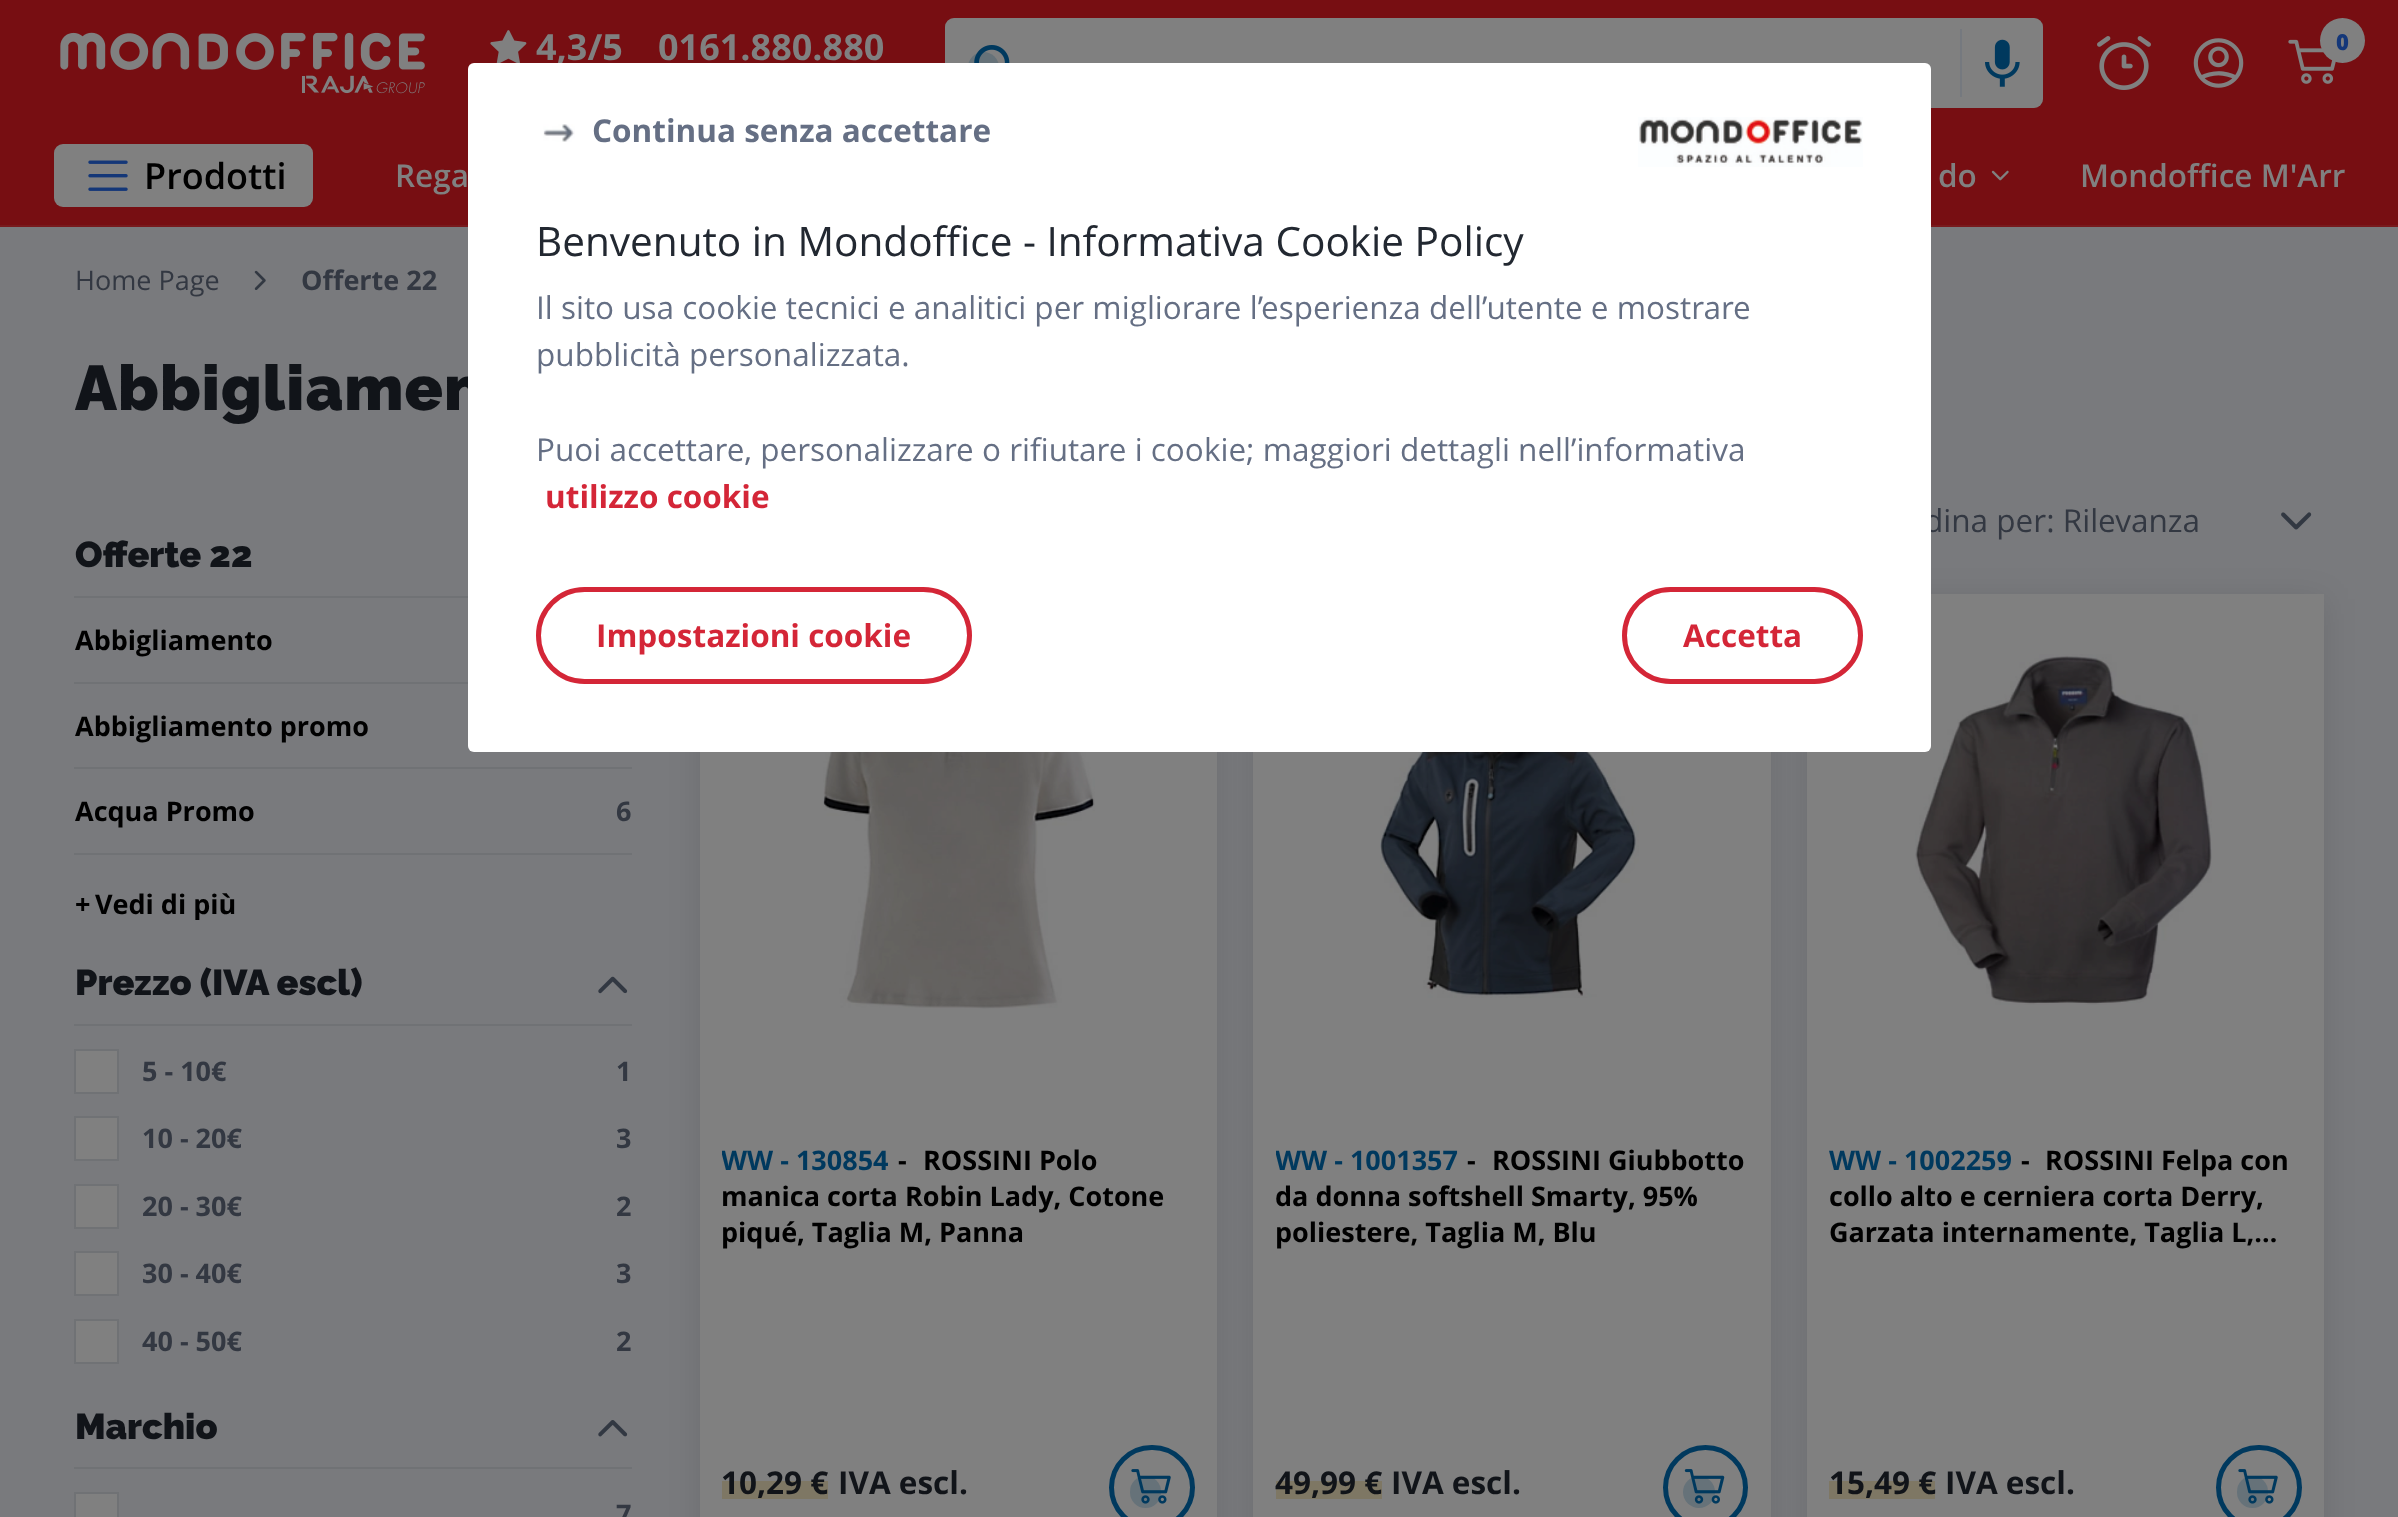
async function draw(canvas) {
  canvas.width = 2398
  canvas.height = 1517
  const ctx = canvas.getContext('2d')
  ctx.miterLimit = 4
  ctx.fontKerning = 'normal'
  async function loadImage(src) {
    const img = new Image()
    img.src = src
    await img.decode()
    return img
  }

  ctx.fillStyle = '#797a7d'
  ctx.fillRect(0, 0, 2398, 1517)
  ctx.fillStyle = '#770e12'
  ctx.fillRect(0, 0, 2398, 225)
  ctx.fillStyle = '#781a1d'
  ctx.fillRect(0, 225, 2398, 2)
  ctx.drawImage(await loadImage('image0.png'), 60, 32, 365, 62)
  ctx.drawImage(await loadImage('image1.png'), 490, 30, 37, 33)
  ctx.font = 'bold 36px Open Sans'
  ctx.fillStyle = '#808080'
  ctx.fillText('4,3/5', 536, 60)
  ctx.fillText('0161.880.880', 658, 60)
  ctx.beginPath()
  ctx.roundRect(945, 18, 1098, 90, 9)
  ctx.fill()
  ctx.beginPath()
  ctx.roundRect(946, 19, 1096, 88, 8)
  ctx.strokeStyle = '#8080804d'
  ctx.lineWidth = 2
  ctx.stroke()
  ctx.fillStyle = '#667279'
  ctx.beginPath()
  ctx.arc(983.5, 67.5, 15.5, 0, 2 * Math.PI)
  ctx.fill()
  ctx.drawImage(await loadImage('image2.png'), 974, 45, 36, 18)
  ctx.fillStyle = '#75797f'
  ctx.fillRect(1960, 29, 2, 68)
  ctx.drawImage(await loadImage('image3.png'), 1985, 39, 35, 48)
  ctx.drawImage(await loadImage('image4.png'), 2097, 36, 54, 54)
  ctx.drawImage(await loadImage('image5.png'), 2193, 38, 51, 50)
  ctx.fillStyle = '#808080'
  ctx.beginPath()
  ctx.arc(2342.5, 40.5, 22.5, 0, 2 * Math.PI)
  ctx.fill()
  ctx.drawImage(await loadImage('image6.png'), 2288, 39, 48, 45)
  ctx.font = '800 22px Open Sans'
  ctx.fillStyle = '#143779'
  ctx.fillText('0', 2336, 50)
  ctx.fillStyle = '#808080'
  ctx.beginPath()
  ctx.roundRect(54, 144, 259, 63, 9)
  ctx.fill()
  ctx.drawImage(await loadImage('image7.png'), 88, 160, 40, 31)
  ctx.font = '600 36px Open Sans'
  ctx.fillStyle = '#000'
  ctx.fillText('Prodotti', 144, 189)
  ctx.font = '600 31.5px Open Sans'
  ctx.fillStyle = '#808080'
  ctx.fillText('Rega', 395, 187)
  ctx.fillText('do', 1938, 187)
  ctx.drawImage(await loadImage('image8.png'), 1991, 170, 18, 11)
  ctx.fillText('Mondoffice M\'Arr', 2080, 187)
  ctx.letterSpacing = '1.1px'
  ctx.font = '900 63px Raleway'
  ctx.fillStyle = '#111419'
  ctx.fillText('Abbigliamen', 75, 410)
  ctx.letterSpacing = '0px'
  ctx.font = '31.5px Open Sans'
  ctx.fillStyle = '#333842'
  ctx.fillText('dina per: Rilevanza', 1924, 532)
  ctx.fillStyle = '#0000001a'
  ctx.filter = 'blur(16px)'
  ctx.beginPath()
  ctx.rect(700, 599, 517, 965)
  ctx.fill()
  ctx.filter = 'none'
  ctx.fillStyle = '#808080'
  ctx.fillRect(700, 752, 517, 765)
  ctx.fillStyle = '#0000001a'
  ctx.filter = 'blur(16px)'
  ctx.beginPath()
  ctx.rect(1253, 599, 518, 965)
  ctx.fill()
  ctx.filter = 'none'
  ctx.fillStyle = '#808080'
  ctx.fillRect(1253, 752, 518, 765)
  ctx.fillStyle = '#0000001a'
  ctx.filter = 'blur(16px)'
  ctx.beginPath()
  ctx.rect(1807, 599, 517, 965)
  ctx.fill()
  ctx.filter = 'none'
  ctx.fillStyle = '#808080'
  ctx.fillRect(1807, 594, 517, 923)
  ctx.drawImage(await loadImage('image19.png'), 1915, 654, 297, 351)
  ctx.fillStyle = '#fff'
  ctx.beginPath()
  ctx.roundRect(468, 63, 1463, 689, 6)
  ctx.fill()
  ctx.drawImage(await loadImage('image9.png'), 1638, 117, 225, 50)
  ctx.drawImage(await loadImage('image10.png'), 543, 124, 32, 18)
  ctx.font = 'bold 31.5px Open Sans'
  ctx.fillStyle = '#656f84'
  ctx.fillText('Continua senza accettare', 592, 142)
  ctx.font = '40.5px Open Sans'
  ctx.fillStyle = '#222831'
  ctx.fillText('Benvenuto in Mondoffice - Informativa Cookie Policy', 536, 256)
  ctx.font = '31.5px Open Sans'
  ctx.fillStyle = '#656f84'
  ctx.fillText('Il sito usa cookie tecnici e analitici per migliorare l’esperienza dell’utente e mostrare', 536, 319)
  ctx.fillText('pubblicità personalizzata.', 536, 366)
  ctx.fillText('Puoi accettare, personalizzare o rifiutare i cookie; maggiori dettagli nell’informativa', 536, 461)
  ctx.font = 'bold 31.5px Open Sans'
  ctx.fillStyle = '#d42637'
  ctx.fillText('utilizzo cookie', 545, 508)
  ctx.beginPath()
  ctx.roundRect(538.5, 589.5, 431, 92, 46)
  ctx.strokeStyle = '#d42637'
  ctx.lineWidth = 5
  ctx.stroke()
  ctx.fillText('Impostazioni cookie', 596, 647)
  ctx.beginPath()
  ctx.roundRect(1624.5, 589.5, 236, 92, 46)
  ctx.stroke()
  ctx.fillText('Accetta', 1683, 647)
  ctx.font = '27px Open Sans'
  ctx.fillStyle = '#333842'
  ctx.fillText('Home Page', 75, 290)
  ctx.drawImage(await loadImage('image11.png'), 254, 270, 12, 20)
  ctx.font = 'bold 27px Open Sans'
  ctx.fillText('Offerte 22', 301, 290)
  ctx.fillStyle = '#707275'
  ctx.fillRect(74, 596, 394, 2)
  ctx.font = '900 36px Raleway'
  ctx.fillStyle = '#111419'
  ctx.fillText('Offerte 22', 75, 567)
  ctx.fillStyle = '#707275'
  ctx.fillRect(74, 682, 394, 2)
  ctx.font = 'bold 27px Open Sans'
  ctx.fillStyle = '#000'
  ctx.fillText('Abbigliamento', 75, 650)
  ctx.fillStyle = '#707275'
  ctx.fillRect(74, 767, 558, 2)
  ctx.fillStyle = '#000'
  ctx.fillText('Abbigliamento promo', 75, 736)
  ctx.fillStyle = '#707275'
  ctx.fillRect(74, 853, 558, 2)
  ctx.fillStyle = '#000'
  ctx.fillText('Acqua Promo', 75, 821)
  ctx.fillStyle = '#333842'
  ctx.fillText('6', 616, 821)
  ctx.fillStyle = '#000'
  ctx.fillText('+', 75, 914)
  ctx.save()
  ctx.beginPath()
  ctx.rect(74, 855, 558, 65)
  ctx.clip()
  ctx.fillText('Vedi di più', 95, 914)
  ctx.restore()
  ctx.fillStyle = '#707275'
  ctx.fillRect(74, 1024, 558, 2)
  ctx.font = '900 36px Raleway'
  ctx.fillStyle = '#111419'
  ctx.fillText('Prezzo (IVA escl)', 75, 995)
  ctx.drawImage(await loadImage('image12.png'), 598, 976, 30, 18)
  ctx.fillStyle = '#808080'
  ctx.beginPath()
  ctx.rect(75, 1050, 43, 43)
  ctx.fill()
  ctx.strokeStyle = '#707275'
  ctx.lineWidth = 2
  ctx.stroke()
  ctx.font = 'bold 27px Open Sans'
  ctx.fillStyle = '#333842'
  ctx.fillText('5 - 10€', 142, 1081)
  ctx.fillText('1', 616, 1081)
  ctx.fillStyle = '#808080'
  ctx.beginPath()
  ctx.rect(75, 1117, 43, 43)
  ctx.fill()
  ctx.stroke()
  ctx.fillStyle = '#333842'
  ctx.fillText('10 - 20€', 142, 1148)
  ctx.fillText('3', 616, 1148)
  ctx.fillStyle = '#808080'
  ctx.beginPath()
  ctx.rect(75, 1185, 43, 43)
  ctx.fill()
  ctx.stroke()
  ctx.fillStyle = '#333842'
  ctx.fillText('20 - 30€', 142, 1216)
  ctx.fillText('2', 616, 1216)
  ctx.fillStyle = '#808080'
  ctx.beginPath()
  ctx.rect(75, 1252, 43, 43)
  ctx.fill()
  ctx.stroke()
  ctx.fillStyle = '#333842'
  ctx.fillText('30 - 40€', 142, 1283)
  ctx.fillText('3', 616, 1283)
  ctx.fillStyle = '#808080'
  ctx.beginPath()
  ctx.rect(75, 1320, 43, 43)
  ctx.fill()
  ctx.stroke()
  ctx.fillStyle = '#333842'
  ctx.fillText('40 - 50€', 142, 1351)
  ctx.fillText('2', 616, 1351)
  ctx.fillStyle = '#707275'
  ctx.fillRect(74, 1467, 558, 2)
  ctx.font = '900 36px Raleway'
  ctx.fillStyle = '#111419'
  ctx.fillText('Marchio', 75, 1439)
  ctx.drawImage(await loadImage('image13.png'), 598, 1420, 30, 17)
  ctx.fillStyle = '#808080'
  ctx.beginPath()
  ctx.rect(75, 1493, 43, 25)
  ctx.fill()
  ctx.stroke()
  ctx.font = 'bold 27px Open Sans'
  ctx.fillStyle = '#333842'
  ctx.fillText('7', 616, 1524)
  ctx.drawImage(await loadImage('image14.png'), 2281, 512, 31, 18)
  ctx.drawImage(await loadImage('image15.png'), 823, 752, 272, 257)
  ctx.save()
  ctx.beginPath()
  ctx.rect(722, 1143, 473, 108)
  ctx.clip()
  ctx.fillStyle = '#00395e'
  ctx.fillText('WW - 130854', 721, 1170)
  ctx.restore()
  ctx.fillStyle = '#000'
  ctx.fillText('-', 898, 1170)
  ctx.fillText('ROSSINI Polo', 923, 1170)
  ctx.fillText('manica corta Robin Lady, Cotone', 721, 1206)
  ctx.fillText('piqué, Taglia M, Panna', 721, 1242)
  ctx.fillStyle = '#7e7764'
  ctx.fillRect(722, 1481, 106, 18)
  ctx.font = 'bold 31.5px Open Sans'
  ctx.fillStyle = '#111419'
  ctx.fillText('10,29 €', 721, 1494)
  ctx.fillText('IVA escl.', 838, 1494)
  ctx.beginPath()
  ctx.roundRect(1111.5, 1447.5, 81, 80, 40)
  ctx.strokeStyle = '#00395e'
  ctx.lineWidth = 5
  ctx.stroke()
  ctx.fillStyle = '#667279'
  ctx.beginPath()
  ctx.roundRect(1130, 1476, 31, 32, 15.5)
  ctx.fill()
  ctx.drawImage(await loadImage('image16.png'), 1131, 1469, 40, 35)
  ctx.drawImage(await loadImage('image17.png'), 1380, 752, 259, 246)
  ctx.save()
  ctx.beginPath()
  ctx.rect(1276, 1143, 472, 108)
  ctx.clip()
  ctx.font = 'bold 27px Open Sans'
  ctx.fillStyle = '#00395e'
  ctx.fillText('WW - 1001357', 1275, 1170)
  ctx.restore()
  ctx.font = 'bold 27px Open Sans'
  ctx.fillStyle = '#000'
  ctx.fillText('-', 1467, 1170)
  ctx.fillText('ROSSINI Giubbotto', 1492, 1170)
  ctx.fillText('da donna softshell Smarty, 95%', 1275, 1206)
  ctx.fillText('poliestere, Taglia M, Blu', 1275, 1242)
  ctx.fillStyle = '#7e7764'
  ctx.fillRect(1276, 1481, 106, 18)
  ctx.font = 'bold 31.5px Open Sans'
  ctx.fillStyle = '#111419'
  ctx.fillText('49,99 €', 1275, 1494)
  ctx.fillText('IVA escl.', 1391, 1494)
  ctx.beginPath()
  ctx.arc(1705.5, 1487.5, 40, 0, 2 * Math.PI)
  ctx.stroke()
  ctx.fillStyle = '#667279'
  ctx.beginPath()
  ctx.arc(1699, 1492, 16, 0, 2 * Math.PI)
  ctx.fill()
  ctx.drawImage(await loadImage('image18.png'), 1684, 1469, 41, 35)
  ctx.font = 'bold 27px Open Sans'
  ctx.fillStyle = '#00395e'
  ctx.fillText('WW - 1002259', 1829, 1170)
  ctx.fillStyle = '#000'
  ctx.fillText('-', 2021, 1170)
  ctx.fillText('ROSSINI Felpa con', 2045, 1170)
  ctx.fillText('collo alto e cerniera corta Derry,', 1829, 1206)
  ctx.fillText('Garzata internamente, Taglia L,…', 1829, 1242)
  ctx.fillStyle = '#7e7764'
  ctx.fillRect(1829, 1481, 106, 18)
  ctx.font = 'bold 31.5px Open Sans'
  ctx.fillStyle = '#111419'
  ctx.fillText('15,49 €', 1829, 1494)
  ctx.fillText('IVA escl.', 1945, 1494)
  ctx.beginPath()
  ctx.roundRect(2218.5, 1447.5, 81, 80, 40)
  ctx.stroke()
  ctx.fillStyle = '#667279'
  ctx.beginPath()
  ctx.roundRect(2237, 1476, 31, 32, 15.5)
  ctx.fill()
  ctx.drawImage(await loadImage('image16.png'), 2238, 1469, 40, 35)
}

draw(document.querySelector('canvas'))
